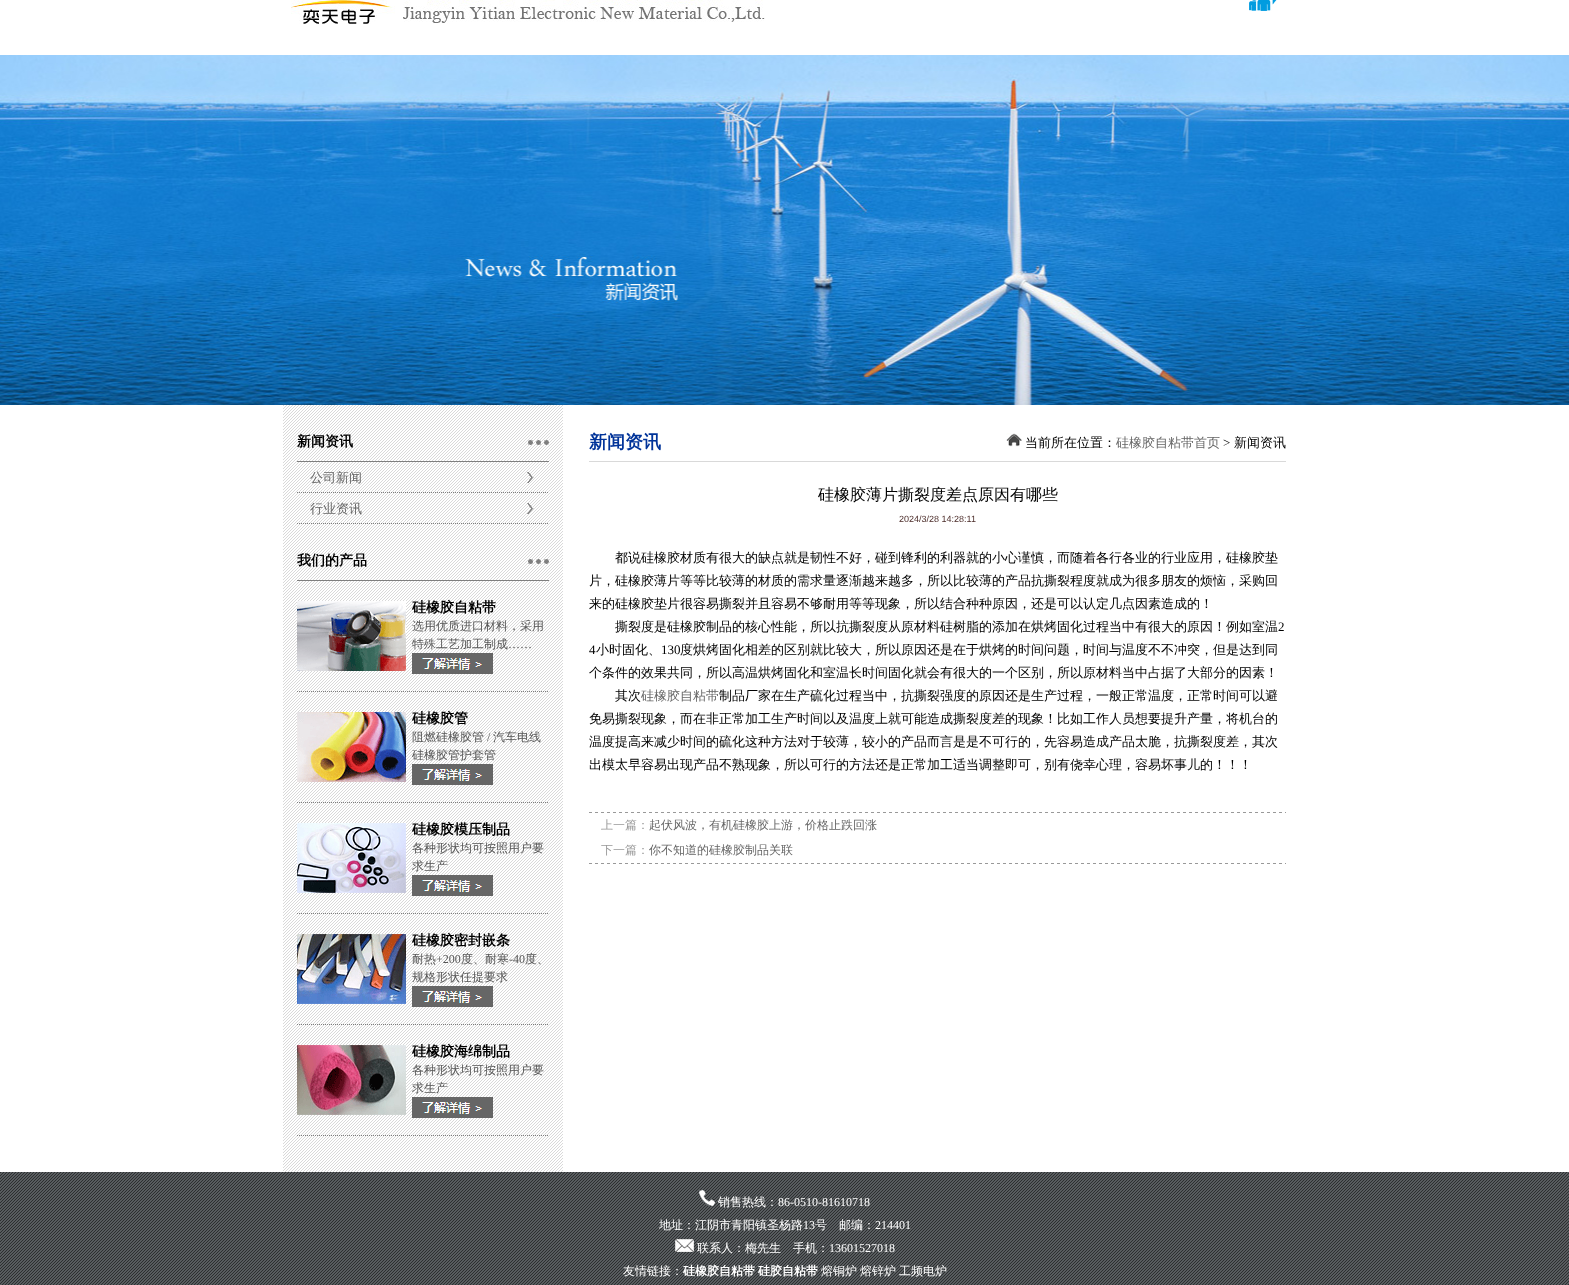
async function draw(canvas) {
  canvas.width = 1569
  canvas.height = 1285
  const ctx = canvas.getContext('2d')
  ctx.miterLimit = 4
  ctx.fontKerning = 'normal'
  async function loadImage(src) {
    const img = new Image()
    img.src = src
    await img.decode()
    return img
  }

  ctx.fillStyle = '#fff'
  ctx.fillRect(0, 0, 1569, 1285)
  ctx.drawImage(await loadImage('image0.png'), 291, 0, 474, 24)
  ctx.drawImage(await loadImage('image1.png'), 1249, 0, 28, 11)
  ctx.drawImage(await loadImage('image2.png'), 0, 55, 1569, 350)
  ctx.drawImage(await loadImage('image3.png'), 283, 405, 280, 767)
  ctx.font = 'bold 14px WenQuanYi Zen Hei'
  ctx.fillStyle = '#000'
  ctx.fillText('新闻资讯', 297, 446)
  ctx.drawImage(await loadImage('image4.png'), 528, 440, 21, 5)
  ctx.fillStyle = '#7e7e7e'
  ctx.fillRect(297, 461, 252, 1)
  ctx.drawImage(await loadImage('image5.png'), 297, 472, 251, 21)
  ctx.font = '500 13px WenQuanYi Zen Hei'
  ctx.fillStyle = '#666'
  ctx.fillText('公司新闻', 310, 482)
  ctx.drawImage(await loadImage('image6.png'), 297, 503, 251, 21)
  ctx.fillText('行业资讯', 310, 513)
  ctx.font = 'bold 14px WenQuanYi Zen Hei'
  ctx.fillStyle = '#000'
  ctx.fillText('我们的产品', 297, 565)
  ctx.drawImage(await loadImage('image7.png'), 528, 559, 21, 5)
  ctx.fillStyle = '#7e7e7e'
  ctx.fillRect(297, 580, 252, 1)
  ctx.drawImage(await loadImage('image8.png'), 297, 601, 109, 70)
  ctx.fillStyle = '#000'
  ctx.fillText('硅橡胶自粘带', 412, 612)
  ctx.font = '500 12px WenQuanYi Zen Hei'
  ctx.fillStyle = '#555'
  ctx.fillText('选用优质进口材料，采用', 412, 630)
  ctx.fillText('特殊工艺加工制成', 412, 648)
  ctx.font = '12px Liberation Serif'
  ctx.fillText('……', 508, 648)
  ctx.drawImage(await loadImage('image9.png'), 412, 653, 81, 21)
  ctx.drawImage(await loadImage('image10.png'), 297, 691, 251, 1)
  ctx.drawImage(await loadImage('image11.png'), 297, 712, 109, 70)
  ctx.font = 'bold 14px WenQuanYi Zen Hei'
  ctx.fillStyle = '#000'
  ctx.fillText('硅橡胶管', 412, 723)
  ctx.font = '500 12px WenQuanYi Zen Hei'
  ctx.fillStyle = '#555'
  ctx.fillText('阻燃硅橡胶管', 412, 741)
  ctx.font = '12px Liberation Serif'
  ctx.fillText('/', 487, 741)
  ctx.font = '500 12px WenQuanYi Zen Hei'
  ctx.fillText('汽车电线', 493, 741)
  ctx.fillText('硅橡胶管护套管', 412, 759)
  ctx.drawImage(await loadImage('image9.png'), 412, 764, 81, 21)
  ctx.drawImage(await loadImage('image10.png'), 297, 802, 251, 1)
  ctx.drawImage(await loadImage('image12.png'), 297, 823, 109, 70)
  ctx.font = 'bold 14px WenQuanYi Zen Hei'
  ctx.fillStyle = '#000'
  ctx.fillText('硅橡胶模压制品', 412, 834)
  ctx.font = '500 12px WenQuanYi Zen Hei'
  ctx.fillStyle = '#555'
  ctx.fillText('各种形状均可按照用户要', 412, 852)
  ctx.fillText('求生产', 412, 870)
  ctx.drawImage(await loadImage('image9.png'), 412, 875, 81, 21)
  ctx.drawImage(await loadImage('image10.png'), 297, 913, 251, 1)
  ctx.drawImage(await loadImage('image13.png'), 297, 934, 109, 70)
  ctx.font = 'bold 14px WenQuanYi Zen Hei'
  ctx.fillStyle = '#000'
  ctx.fillText('硅橡胶密封嵌条', 412, 945)
  ctx.font = '500 12px WenQuanYi Zen Hei'
  ctx.fillStyle = '#555'
  ctx.fillText('耐热', 412, 963)
  ctx.font = '12px Liberation Serif'
  ctx.fillText('+200', 436, 963)
  ctx.font = '500 12px WenQuanYi Zen Hei'
  ctx.fillText('度、耐寒', 461, 963)
  ctx.font = '12px Liberation Serif'
  ctx.fillText('-40', 509, 963)
  ctx.font = '500 12px WenQuanYi Zen Hei'
  ctx.fillText('度、', 525, 963)
  ctx.fillText('规格形状任提要求', 412, 981)
  ctx.drawImage(await loadImage('image9.png'), 412, 986, 81, 21)
  ctx.drawImage(await loadImage('image10.png'), 297, 1024, 251, 1)
  ctx.drawImage(await loadImage('image14.png'), 297, 1045, 109, 70)
  ctx.font = 'bold 14px WenQuanYi Zen Hei'
  ctx.fillStyle = '#000'
  ctx.fillText('硅橡胶海绵制品', 412, 1056)
  ctx.font = '500 12px WenQuanYi Zen Hei'
  ctx.fillStyle = '#555'
  ctx.fillText('各种形状均可按照用户要', 412, 1074)
  ctx.fillText('求生产', 412, 1092)
  ctx.drawImage(await loadImage('image9.png'), 412, 1097, 81, 21)
  ctx.drawImage(await loadImage('image10.png'), 297, 1135, 251, 1)
  ctx.font = 'bold 18px WenQuanYi Zen Hei'
  ctx.fillStyle = '#039'
  ctx.fillText('新闻资讯', 589, 448)
  ctx.drawImage(await loadImage('image15.png'), 1006, 433, 16, 14)
  ctx.font = '500 13px WenQuanYi Zen Hei'
  ctx.fillStyle = '#000'
  ctx.fillText('当前所在位置：', 1025, 447)
  ctx.fillStyle = '#666'
  ctx.fillText('硅橡胶自粘带首页', 1116, 447)
  ctx.font = '13px Liberation Serif'
  ctx.fillStyle = '#000'
  ctx.fillText('>', 1223, 447)
  ctx.font = '500 13px WenQuanYi Zen Hei'
  ctx.fillText('新闻资讯', 1234, 447)
  ctx.fillStyle = '#d9d9d9'
  ctx.fillRect(589, 461, 697, 1)
  ctx.font = '500 16px WenQuanYi Zen Hei'
  ctx.fillStyle = '#000'
  ctx.fillText('硅橡胶薄片撕裂度差点原因有哪些', 818, 500)
  ctx.font = '9px Liberation Sans'
  ctx.fillStyle = '#4c2d2a'
  ctx.fillText('2024/3/28 14:28:11', 899, 522)
  ctx.font = '500 13px WenQuanYi Zen Hei'
  ctx.fillStyle = '#000'
  ctx.fillText('都说硅橡胶材质有很大的缺点就是韧性不好，碰到锋利的利器就的小心谨慎，而随着各行各业的行业应用，硅橡胶垫', 615, 562)
  ctx.fillText('片，硅橡胶薄片等等比较薄的材质的需求量逐渐越来越多，所以比较薄的产品抗撕裂程度就成为很多朋友的烦恼，采购回', 589, 585)
  ctx.fillText('来的硅橡胶垫片很容易撕裂并且容易不够耐用等等现象，所以结合种种原因，还是可以认定几点因素造成的！', 589, 608)
  ctx.fillText('撕裂度是硅橡胶制品的核心性能，所以抗撕裂度从原材料硅树脂的添加在烘烤固化过程当中有很大的原因！例如室温', 615, 631)
  ctx.font = '13px Liberation Serif'
  ctx.fillText('2', 1278, 631)
  ctx.fillText('4', 589, 654)
  ctx.font = '500 13px WenQuanYi Zen Hei'
  ctx.fillText('小时固化、', 596, 654)
  ctx.font = '13px Liberation Serif'
  ctx.fillText('130', 661, 654)
  ctx.font = '500 13px WenQuanYi Zen Hei'
  ctx.fillText('度烘烤固化相差的区别就比较大，所以原因还是在于烘烤的时间问题，时间与温度不不冲突，但是达到同', 680, 654)
  ctx.fillText('个条件的效果共同，所以高温烘烤固化和室温长时间固化就会有很大的一个区别，所以原材料当中占据了大部分的因素！', 589, 677)
  ctx.fillText('其次', 615, 700)
  ctx.fillStyle = '#666'
  ctx.fillText('硅橡胶自粘带', 641, 700)
  ctx.fillStyle = '#000'
  ctx.fillText('制品厂家在生产硫化过程当中，抗撕裂强度的原因还是生产过程，一般正常温度，正常时间可以避', 719, 700)
  ctx.fillText('免易撕裂现象，而在非正常加工生产时间以及温度上就可能造成撕裂度差的现象！比如工作人员想要提升产量，将机台的', 589, 723)
  ctx.fillText('温度提高来减少时间的硫化这种方法对于较薄，较小的产品而言是是不可行的，先容易造成产品太脆，抗撕裂度差，其次', 589, 746)
  ctx.fillText('出模太早容易出现产品不熟现象，所以可行的方法还是正常加工适当调整即可，别有侥幸心理，容易坏事儿的！！！', 589, 769)
  ctx.drawImage(await loadImage('image16.png'), 589, 812, 697, 1)
  ctx.font = '500 12px WenQuanYi Zen Hei'
  ctx.fillStyle = '#999'
  ctx.fillText('上一篇：', 601, 829)
  ctx.fillStyle = '#666'
  ctx.fillText('起伏风波，有机硅橡胶上游，价格止跌回涨', 649, 829)
  ctx.fillStyle = '#999'
  ctx.fillText('下一篇：', 601, 854)
  ctx.fillStyle = '#666'
  ctx.fillText('你不知道的硅橡胶制品关联', 649, 854)
  ctx.drawImage(await loadImage('image16.png'), 589, 863, 697, 1)
  ctx.drawImage(await loadImage('image17.png'), 0, 1172, 1569, 113)
  ctx.drawImage(await loadImage('image18.png'), 699, 1190, 16, 16)
  ctx.fillStyle = '#fff'
  ctx.fillText('销售热线：', 718, 1206)
  ctx.font = '12px Liberation Serif'
  ctx.fillText('86-0510-81610718', 778, 1206)
  ctx.font = '500 12px WenQuanYi Zen Hei'
  ctx.fillText('地址：江阴市青阳镇圣杨路', 659, 1229)
  ctx.font = '12px Liberation Serif'
  ctx.fillText('13', 803, 1229)
  ctx.font = '500 12px WenQuanYi Zen Hei'
  ctx.fillText('号　邮编：', 815, 1229)
  ctx.font = '12px Liberation Serif'
  ctx.fillText('214401', 875, 1229)
  ctx.drawImage(await loadImage('image19.png'), 675, 1239, 19, 13)
  ctx.font = '500 12px WenQuanYi Zen Hei'
  ctx.fillText('联系人：梅先生　手机：', 697, 1252)
  ctx.font = '12px Liberation Serif'
  ctx.fillText('13601527018', 829, 1252)
  ctx.font = '500 12px WenQuanYi Zen Hei'
  ctx.fillText('友情链接：', 623, 1275)
  ctx.font = 'bold 12px WenQuanYi Zen Hei'
  ctx.fillText('硅橡胶自粘带', 683, 1275)
  ctx.fillText('硅胶自粘带', 758, 1275)
  ctx.font = '500 12px WenQuanYi Zen Hei'
  ctx.fillText('熔铜炉', 821, 1275)
  ctx.fillText('熔锌炉', 860, 1275)
  ctx.fillText('工频电炉', 899, 1275)
}

draw(document.querySelector('canvas'))
